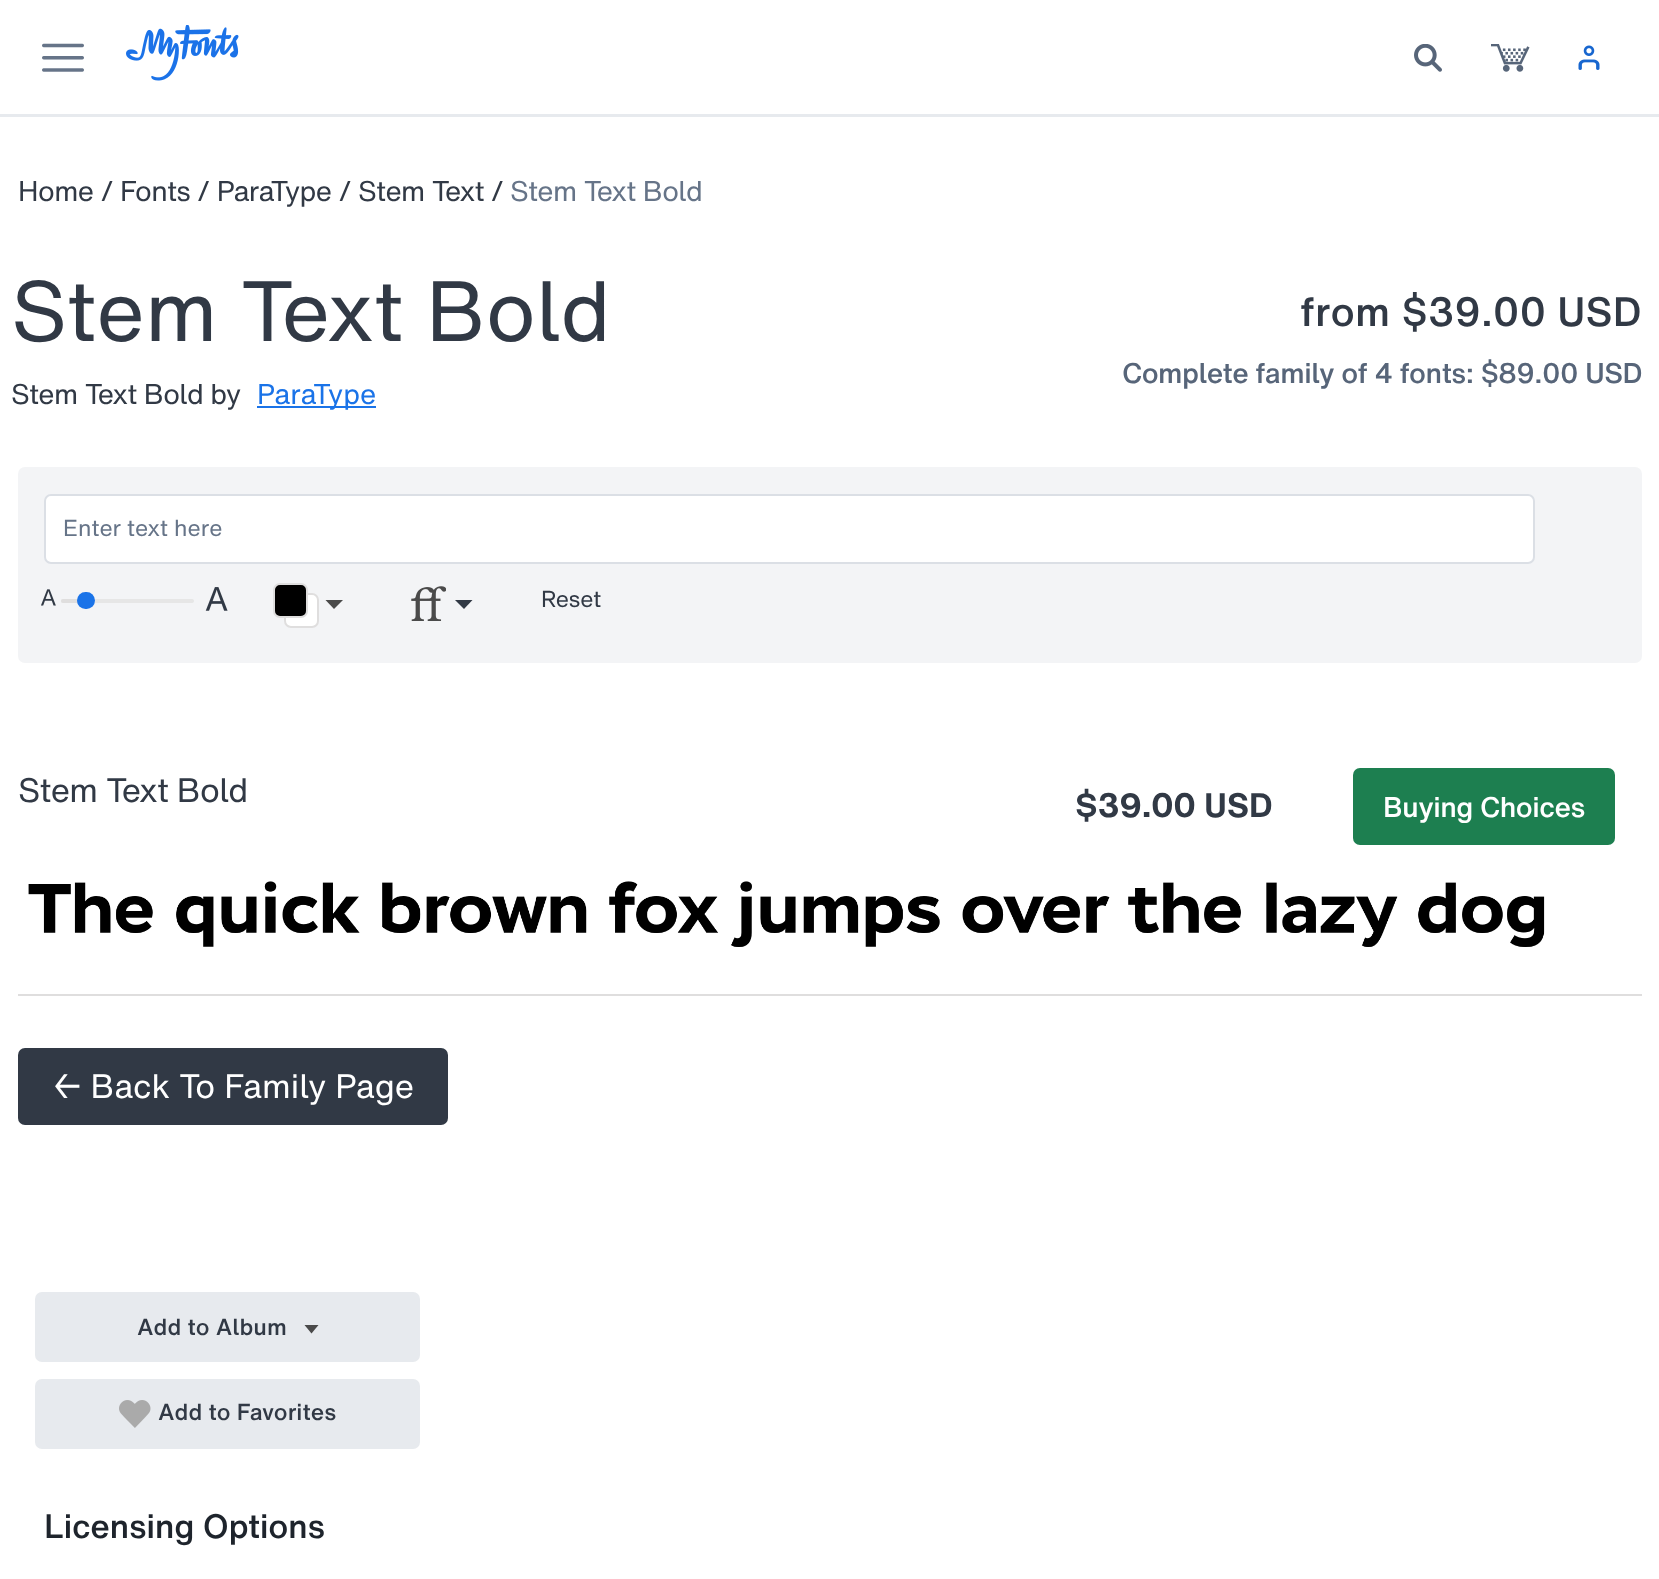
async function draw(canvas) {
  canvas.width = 1659
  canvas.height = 1579
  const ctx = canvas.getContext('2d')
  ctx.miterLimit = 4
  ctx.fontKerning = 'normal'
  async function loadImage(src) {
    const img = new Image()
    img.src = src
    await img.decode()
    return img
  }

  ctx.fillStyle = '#fff'
  ctx.fillRect(0, 0, 1659, 1579)
  ctx.fillStyle = '#e7eaee'
  ctx.fillRect(0, 114, 1659, 3)
  ctx.drawImage(await loadImage('image0.png'), 42, 43, 42, 29)
  ctx.drawImage(await loadImage('image1.png'), 126, 25, 113, 56)
  ctx.drawImage(await loadImage('image2.png'), 1414, 44, 28, 28)
  ctx.drawImage(await loadImage('image3.png'), 1491, 44, 39, 28)
  ctx.drawImage(await loadImage('image4.png'), 1578, 45, 22, 25)
  ctx.letterSpacing = '-0.55px'
  ctx.font = '28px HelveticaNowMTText'
  ctx.fillStyle = '#313945'
  ctx.fillText('Home / Fonts / ParaType / Stem Text /', 18, 201)
  ctx.fillStyle = '#667488'
  ctx.fillText('Stem Text Bold', 510, 201)
  ctx.letterSpacing = '0px'
  ctx.font = '84px HelveticaNowMTText'
  ctx.fillStyle = '#313945'
  ctx.fillText('Stem Text Bold', 11, 341)
  ctx.letterSpacing = '-0.55px'
  ctx.font = '28px HelveticaNowMTText'
  ctx.fillText('Stem Text Bold by', 11, 404)
  ctx.fillStyle = '#1a73e8'
  ctx.fillRect(257, 406, 119, 2)
  ctx.letterSpacing = '0px'
  ctx.fillText('ParaType', 257, 404)
  ctx.font = '500 40.25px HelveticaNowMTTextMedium'
  ctx.fillStyle = '#313945'
  ctx.fillText('from $39.00 USD', 1300, 326)
  ctx.letterSpacing = '-0.55px'
  ctx.font = '500 28px HelveticaNowMTTextMedium'
  ctx.fillStyle = '#576579'
  ctx.fillText('Complete family of 4 fonts: $89.00 USD', 1122, 383)
  ctx.fillStyle = '#f3f4f6'
  ctx.beginPath()
  ctx.roundRect(18, 467, 1624, 196, 7)
  ctx.fill()
  ctx.fillStyle = '#fff'
  ctx.beginPath()
  ctx.roundRect(45, 495, 1489, 68, 6)
  ctx.fill()
  ctx.strokeStyle = '#dbdfe5'
  ctx.lineWidth = 2
  ctx.stroke()
  ctx.letterSpacing = '0px'
  ctx.font = '22.75px HelveticaNowMTText'
  ctx.fillStyle = '#667488'
  ctx.fillText('Enter text here', 63, 536)
  ctx.drawImage(await loadImage('image5.png'), 41, 589, 15, 17)
  ctx.fillStyle = '#e6e6e6'
  ctx.beginPath()
  ctx.roundRect(61, 599, 133, 4, 2)
  ctx.fill()
  ctx.fillStyle = '#dfdede'
  ctx.beginPath()
  ctx.roundRect(61, 599, 25, 4, 2)
  ctx.fill()
  ctx.fillStyle = '#1a73e8'
  ctx.beginPath()
  ctx.roundRect(77, 592, 18, 17, 8.5)
  ctx.fill()
  ctx.drawImage(await loadImage('image6.png'), 205, 587, 23, 24)
  ctx.fillStyle = '#fff'
  ctx.beginPath()
  ctx.roundRect(285, 594, 33, 33, 6)
  ctx.fill()
  ctx.strokeStyle = '#dfdede'
  ctx.stroke()
  ctx.fillStyle = '#000'
  ctx.beginPath()
  ctx.roundRect(274, 584, 33, 33, 6)
  ctx.fill()
  ctx.stroke()
  ctx.fillStyle = '#4a4a4a'
  ctx.beginPath()
  ctx.moveTo(325.5, 600)
  ctx.lineTo(343, 600)
  ctx.lineTo(334, 609)
  ctx.closePath()
  ctx.fill()
  ctx.drawImage(await loadImage('image7.png'), 411, 586, 35, 35)
  ctx.fillStyle = '#313945'
  ctx.beginPath()
  ctx.moveTo(455, 600)
  ctx.lineTo(472.5, 600)
  ctx.lineTo(464, 609)
  ctx.closePath()
  ctx.fill()
  ctx.fillText('Reset', 541, 607)
  ctx.fillStyle = '#dfdede'
  ctx.fillRect(18, 994, 1624, 2)
  ctx.letterSpacing = '-0.55px'
  ctx.font = '33.25px HelveticaNowMTText'
  ctx.fillStyle = '#313945'
  ctx.fillText('Stem Text Bold', 18, 802)
  ctx.font = 'bold 33.25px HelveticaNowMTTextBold'
  ctx.fillText('$39.00 USD', 1075, 817)
  ctx.fillStyle = '#1d7f50'
  ctx.beginPath()
  ctx.roundRect(1353, 768, 262, 77, 7)
  ctx.fill()
  ctx.font = '500 28px HelveticaNowMTTextMedium'
  ctx.fillStyle = '#fff'
  ctx.fillText('Buying Choices', 1383, 817)
  ctx.drawImage(await loadImage('image8.png'), 28, 881, 1517, 66)
  ctx.fillStyle = '#313945'
  ctx.beginPath()
  ctx.roundRect(18, 1048, 430, 77, 7)
  ctx.fill()
  ctx.letterSpacing = '0px'
  ctx.font = '33.25px HelveticaNowMTText'
  ctx.fillStyle = '#fff'
  ctx.fillText('← Back To Family Page', 53, 1098)
  ctx.fillStyle = '#e7eaee'
  ctx.beginPath()
  ctx.roundRect(35, 1292, 385, 70, 7)
  ctx.fill()
  ctx.font = '500 22.75px HelveticaNowMTTextMedium'
  ctx.fillStyle = '#313945'
  ctx.fillText('Add to Album', 137, 1335)
  ctx.fillStyle = '#4a4a4a'
  ctx.beginPath()
  ctx.moveTo(304.5, 1325)
  ctx.lineTo(318.5, 1325)
  ctx.lineTo(311.5, 1333.5)
  ctx.closePath()
  ctx.fill()
  ctx.fillStyle = '#e7eaee'
  ctx.beginPath()
  ctx.roundRect(35, 1379, 385, 70, 7)
  ctx.fill()
  ctx.drawImage(await loadImage('image9.png'), 119, 1400, 32, 28)
  ctx.fillStyle = '#313945'
  ctx.fillText('Add to Favorites', 158, 1420)
  ctx.letterSpacing = '-0.4px'
  ctx.font = '500 33.25px HelveticaNowMTTextMedium'
  ctx.fillStyle = '#1e242c'
  ctx.fillText('Licensing Options', 44, 1538)
}

draw(document.querySelector('canvas'))
